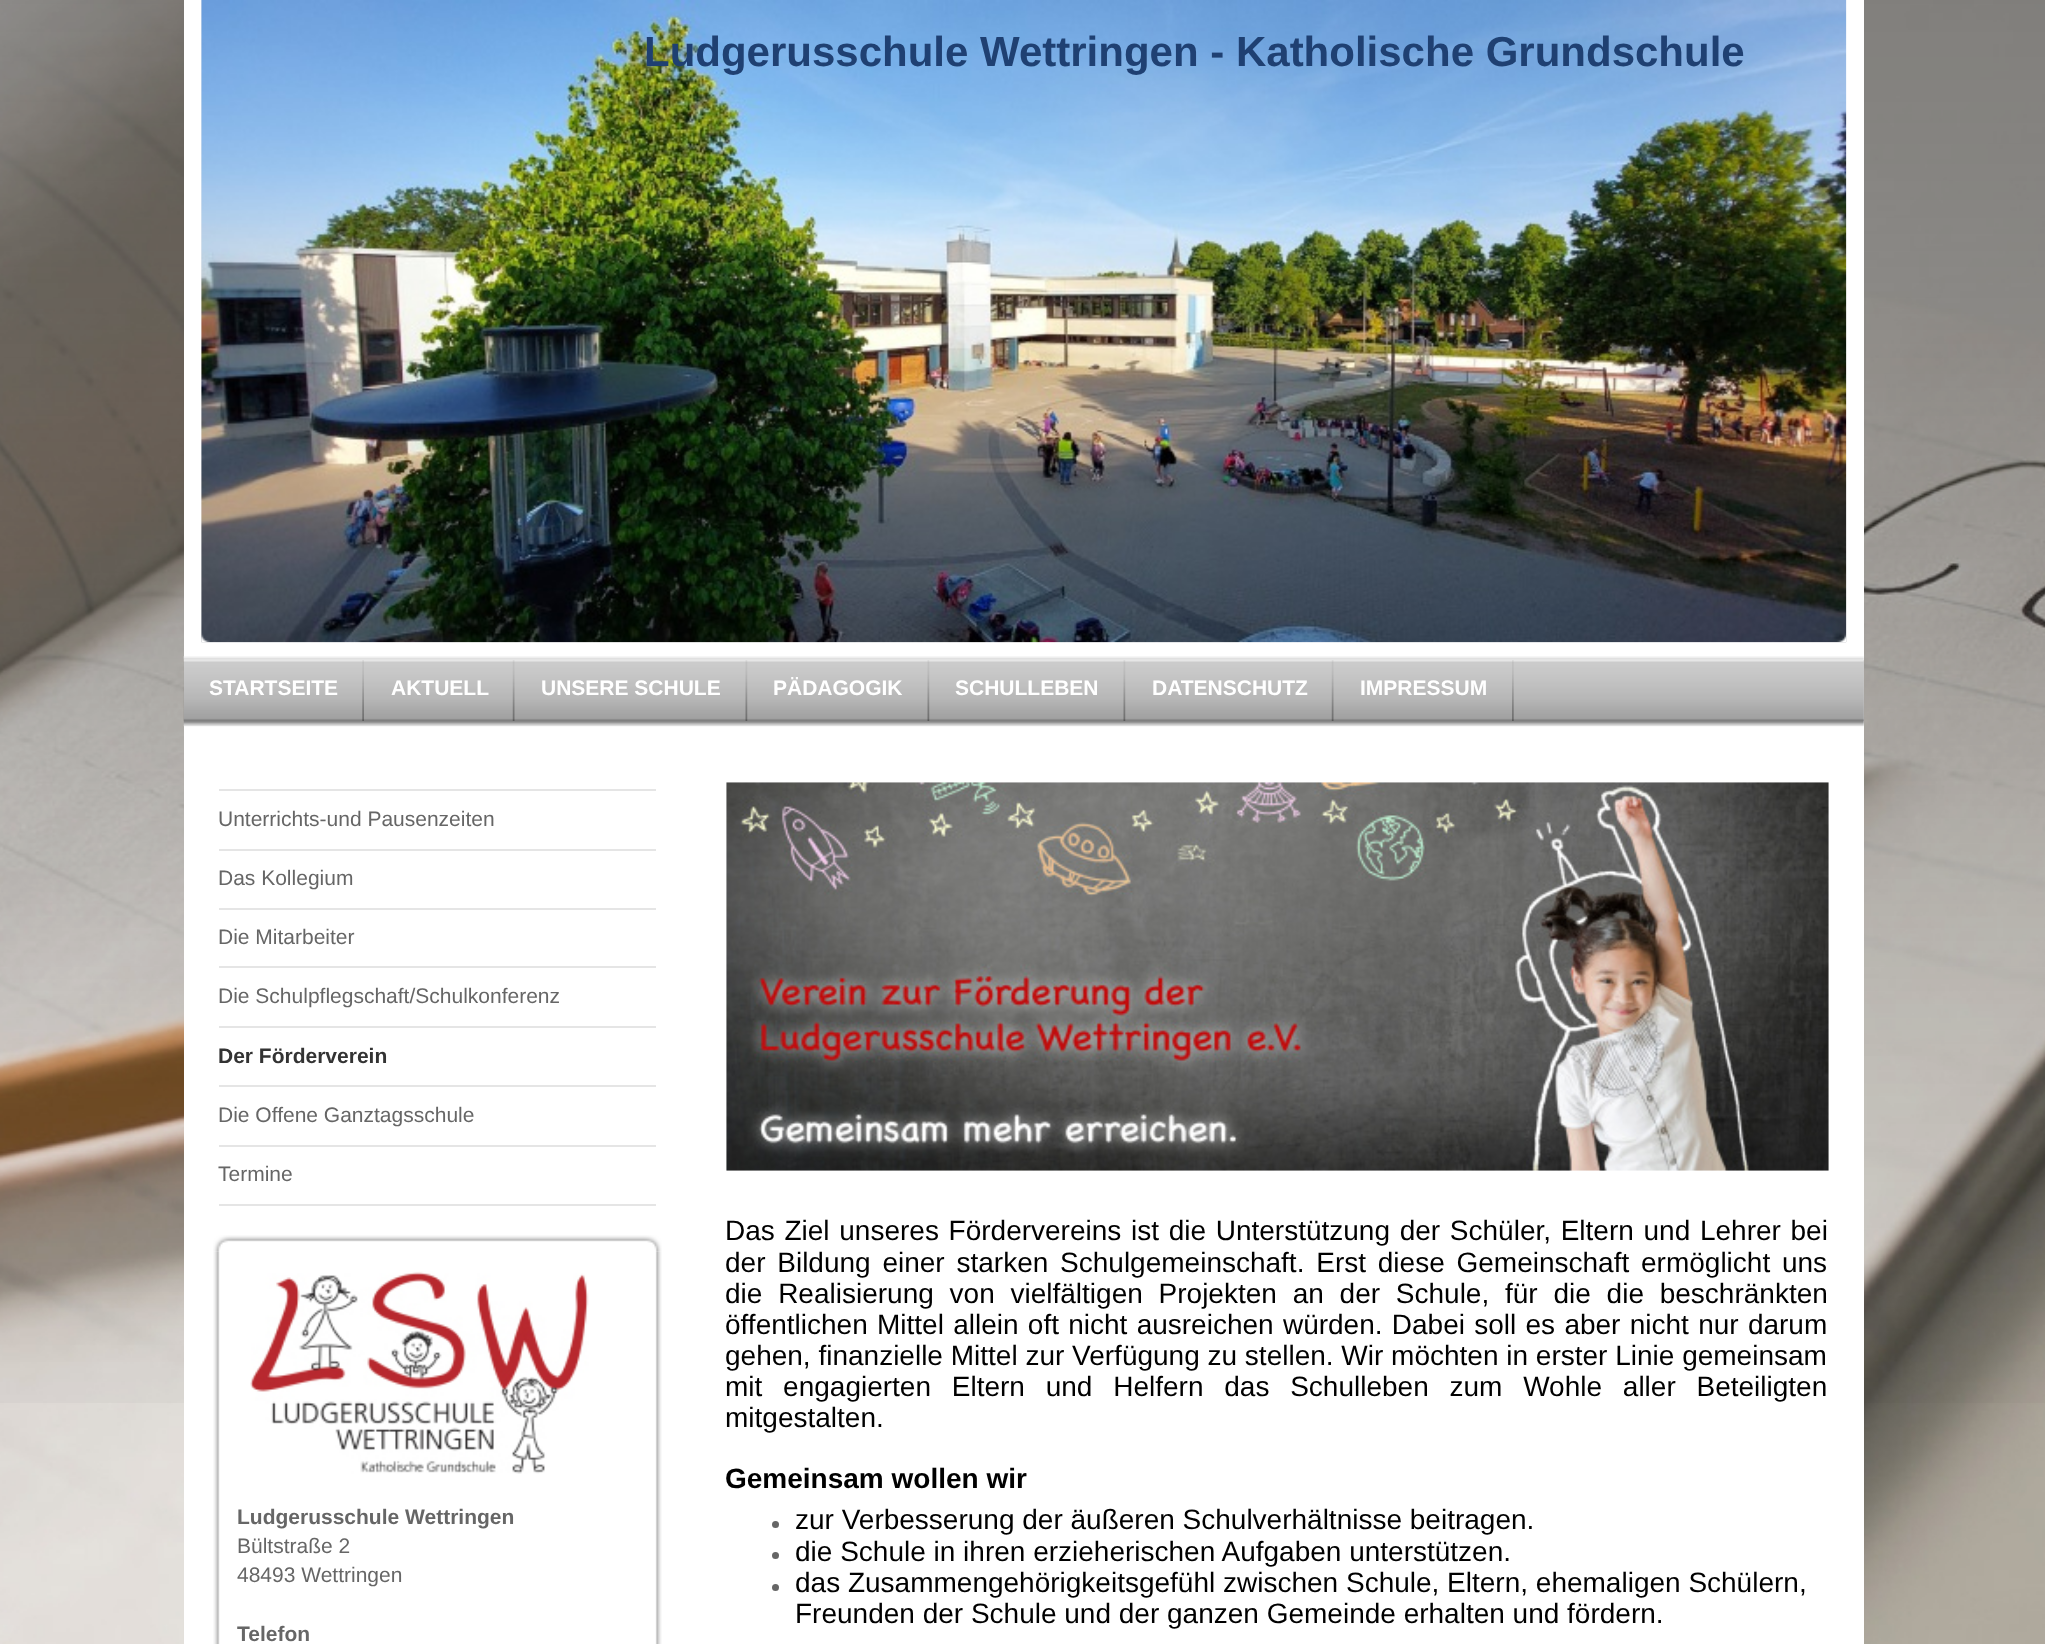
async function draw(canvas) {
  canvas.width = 2045
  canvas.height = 1644
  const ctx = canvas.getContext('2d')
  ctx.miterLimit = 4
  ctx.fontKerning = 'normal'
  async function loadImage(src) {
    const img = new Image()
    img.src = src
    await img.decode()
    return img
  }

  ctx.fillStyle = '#fff'
  ctx.fillRect(0, 0, 2045, 1644)
  ctx.drawImage(await loadImage('image0.png'), 0, 0, 2045, 1644)
  ctx.drawImage(await loadImage('image1.png'), 0, 0, 2045, 1403)
  ctx.fillRect(184, 0, 1680, 1644)
  ctx.drawImage(await loadImage('image2.png'), 201, 0, 1646, 643)
  ctx.fillStyle = '#eee'
  ctx.fillRect(201, 0, 1, 642)
  ctx.drawImage(await loadImage('image3.png'), 201, 0, 1646, 643)
  ctx.font = 'bold 42px Liberation Sans'
  ctx.fillStyle = '#1f4072'
  ctx.fillText('Ludgerusschule Wettringen - Katholische Grundschule', 644, 66)
  ctx.drawImage(await loadImage('image4.png'), 201, 633, 9, 10)
  ctx.drawImage(await loadImage('image5.png'), 1837, 633, 10, 10)
  ctx.drawImage(await loadImage('image6.png'), 183, 656, 1681, 4)
  ctx.fillStyle = '#ccc'
  ctx.fillRect(184, 660, 1680, 61)
  ctx.drawImage(await loadImage('image7.png'), 183, 660, 1681, 61)
  ctx.drawImage(await loadImage('image8.png'), 362, 660, 2, 61)
  ctx.font = 'bold 21px Liberation Sans'
  ctx.fillStyle = '#fff'
  ctx.fillText('STARTSEITE', 209, 695)
  ctx.drawImage(await loadImage('image9.png'), 512, 660, 3, 61)
  ctx.fillText('AKTUELL', 391, 695)
  ctx.drawImage(await loadImage('image10.png'), 745, 660, 3, 61)
  ctx.fillText('UNSERE SCHULE', 541, 695)
  ctx.drawImage(await loadImage('image10.png'), 927, 660, 3, 61)
  ctx.fillText('PÄDAGOGIK', 773, 695)
  ctx.drawImage(await loadImage('image10.png'), 1123, 660, 3, 61)
  ctx.fillText('SCHULLEBEN', 955, 695)
  ctx.drawImage(await loadImage('image9.png'), 1331, 660, 3, 61)
  ctx.fillText('DATENSCHUTZ', 1152, 695)
  ctx.drawImage(await loadImage('image11.png'), 1512, 660, 2, 61)
  ctx.fillText('IMPRESSUM', 1360, 695)
  ctx.drawImage(await loadImage('image12.png'), 183, 721, 1681, 6)
  ctx.fillStyle = '#e5e5e5'
  ctx.fillRect(219, 789, 437, 2)
  ctx.font = '21px Liberation Sans'
  ctx.fillStyle = '#666'
  ctx.fillText('Unterrichts-und Pausenzeiten', 218, 826)
  ctx.fillStyle = '#e5e5e5'
  ctx.fillRect(219, 849, 437, 2)
  ctx.fillStyle = '#666'
  ctx.fillText('Das Kollegium', 218, 885)
  ctx.fillStyle = '#e5e5e5'
  ctx.fillRect(219, 908, 437, 2)
  ctx.fillStyle = '#666'
  ctx.fillText('Die Mitarbeiter', 218, 944)
  ctx.fillStyle = '#e5e5e5'
  ctx.fillRect(219, 966, 437, 2)
  ctx.fillStyle = '#666'
  ctx.fillText('Die Schulpflegschaft/Schulkonferenz', 218, 1003)
  ctx.fillStyle = '#e5e5e5'
  ctx.fillRect(219, 1026, 437, 2)
  ctx.font = 'bold 21px Liberation Sans'
  ctx.fillStyle = '#333'
  ctx.fillText('Der Förderverein', 218, 1063)
  ctx.fillStyle = '#e5e5e5'
  ctx.fillRect(219, 1085, 437, 2)
  ctx.font = '21px Liberation Sans'
  ctx.fillStyle = '#666'
  ctx.fillText('Die Offene Ganztagsschule', 218, 1122)
  ctx.fillStyle = '#e5e5e5'
  ctx.fillRect(219, 1145, 437, 2)
  ctx.fillRect(219, 1204, 437, 2)
  ctx.fillStyle = '#666'
  ctx.fillText('Termine', 218, 1181)
  ctx.drawImage(await loadImage('image13.png'), 213, 1235, 449, 17)
  ctx.drawImage(await loadImage('image14.png'), 213, 1251, 449, 393)
  ctx.drawImage(await loadImage('image15.png'), 250, 1271, 339, 203)
  ctx.font = 'bold 21px Liberation Sans'
  ctx.fillText('Ludgerusschule Wettringen', 237, 1524)
  ctx.font = '21px Liberation Sans'
  ctx.fillText('Bültstraße 2', 237, 1553)
  ctx.fillText('48493 Wettringen', 237, 1582)
  ctx.font = 'bold 21px Liberation Sans'
  ctx.fillText('Telefon', 237, 1641)
  ctx.drawImage(await loadImage('image16.png'), 726, 782, 1103, 389)
  ctx.wordSpacing = '1.9px'
  ctx.font = '28px Liberation Sans'
  ctx.fillStyle = '#000'
  ctx.fillText('Das Ziel unseres Fördervereins ist die Unterstützung der Schüler, Eltern und Lehrer bei', 725, 1240)
  ctx.wordSpacing = '4px'
  ctx.fillText('der Bildung einer starken Schulgemeinschaft. Erst diese Gemeinschaft ermöglicht uns', 725, 1272)
  ctx.wordSpacing = '8px'
  ctx.fillText('die Realisierung von vielfältigen Projekten an der Schule, für die die beschränkten', 725, 1303)
  ctx.wordSpacing = '1.5px'
  ctx.fillText('öffentlichen Mittel allein oft nicht ausreichen würden. Dabei soll es aber nicht nur darum', 725, 1334)
  ctx.wordSpacing = '0px'
  ctx.fillText('gehen, finanzielle Mittel zur Verfügung zu stellen. Wir möchten in erster Linie gemeinsam', 725, 1365)
  ctx.wordSpacing = '13px'
  ctx.fillText('mit engagierten Eltern und Helfern das Schulleben zum Wohle aller Beteiligten', 725, 1396)
  ctx.wordSpacing = '0px'
  ctx.fillText('mitgestalten.', 725, 1427)
  ctx.font = 'bold 28px Liberation Sans'
  ctx.fillText('Gemeinsam wollen wir', 725, 1488)
  ctx.fillStyle = '#666'
  ctx.beginPath()
  ctx.arc(775.5, 1524.5, 3.5, 0, 2 * Math.PI)
  ctx.fill()
  ctx.font = '28px Liberation Sans'
  ctx.fillStyle = '#000'
  ctx.fillText('zur Verbesserung der äußeren Schulverhältnisse beitragen.', 795, 1529)
  ctx.fillStyle = '#666'
  ctx.beginPath()
  ctx.arc(775.5, 1555.5, 3.5, 0, 2 * Math.PI)
  ctx.fill()
  ctx.fillStyle = '#000'
  ctx.fillText('die Schule in ihren erzieherischen Aufgaben unterstützen.', 795, 1561)
  ctx.fillStyle = '#666'
  ctx.beginPath()
  ctx.arc(775.5, 1587.5, 3.5, 0, 2 * Math.PI)
  ctx.fill()
  ctx.fillStyle = '#000'
  ctx.fillText('das Zusammengehörigkeitsgefühl zwischen Schule, Eltern, ehemaligen Schülern,', 795, 1592)
  ctx.fillText('Freunden der Schule und der ganzen Gemeinde erhalten und fördern.', 795, 1623)
}

draw(document.querySelector('canvas'))
